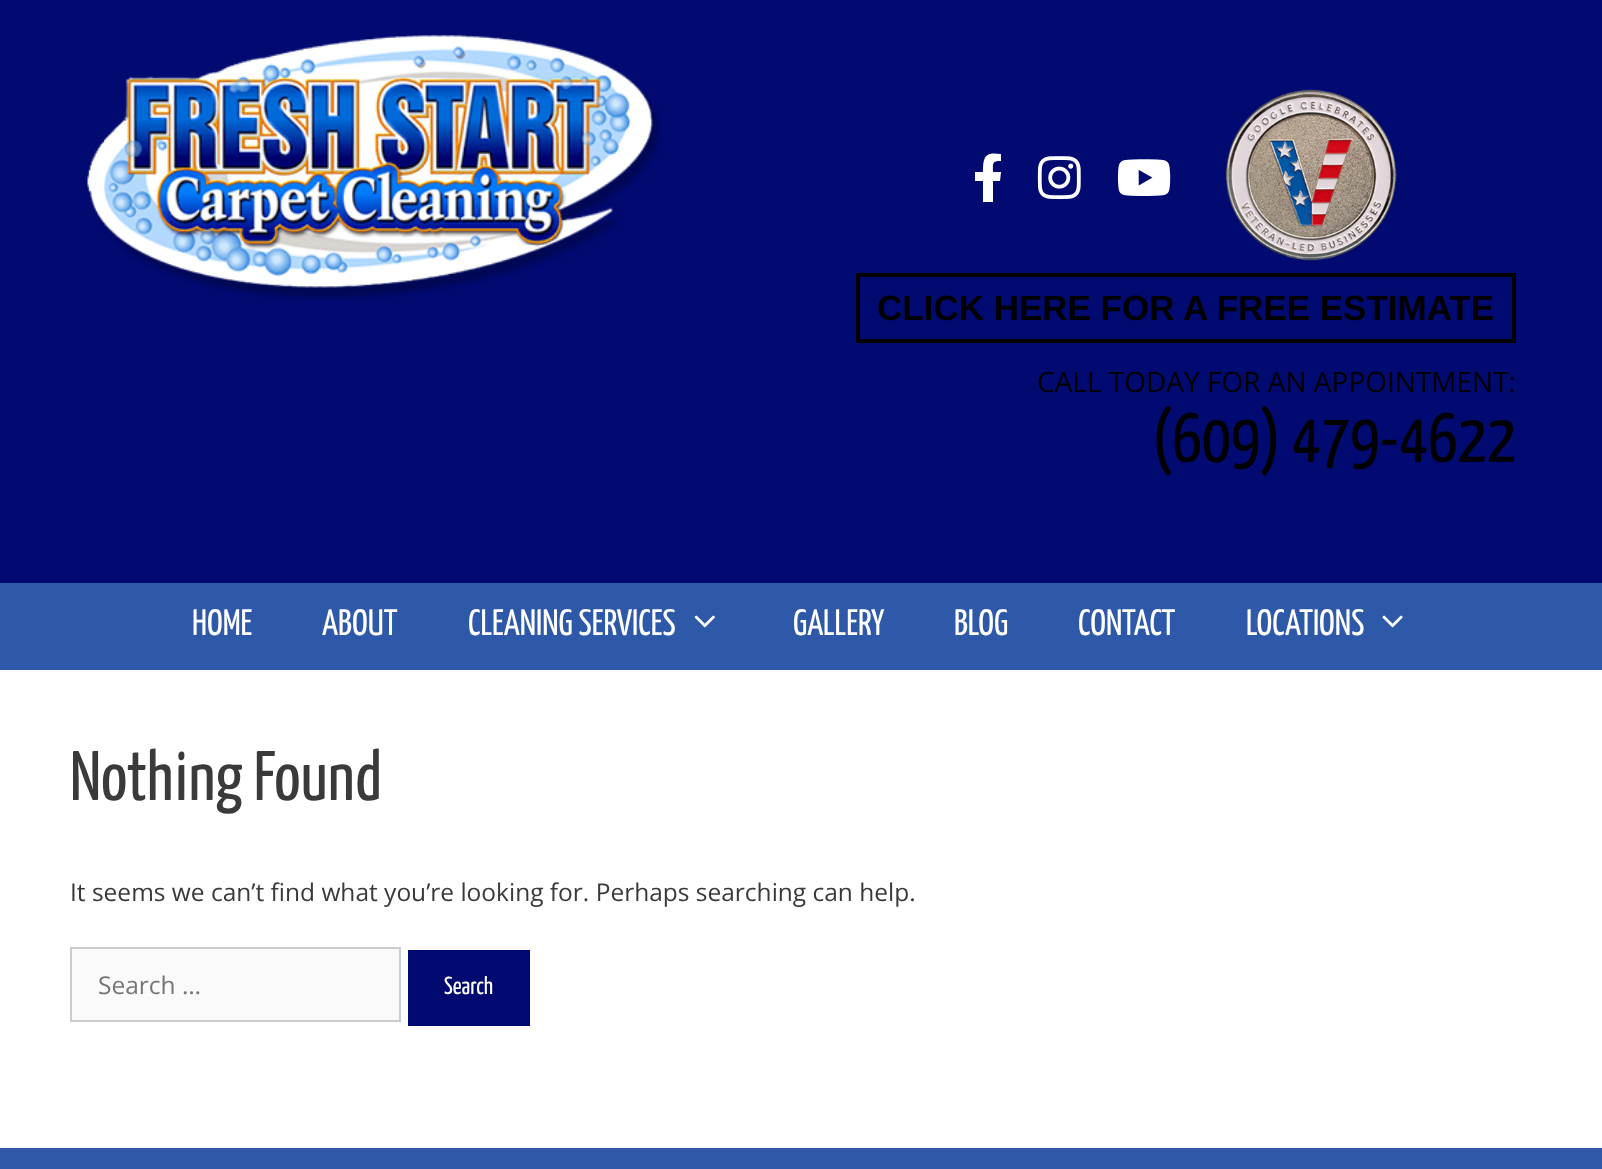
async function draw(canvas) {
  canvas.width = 1602
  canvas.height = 1169
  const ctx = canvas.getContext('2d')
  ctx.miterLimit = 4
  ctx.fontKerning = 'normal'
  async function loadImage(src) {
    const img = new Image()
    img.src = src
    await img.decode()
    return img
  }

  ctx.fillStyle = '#2d59a8'
  ctx.fillRect(0, 0, 1602, 1169)
  ctx.fillStyle = '#000a70'
  ctx.fillRect(0, 0, 1602, 583)
  ctx.drawImage(await loadImage('image0.png'), 87, 35, 574, 265)
  ctx.fillStyle = '#fff'
  ctx.beginPath()
  ctx.moveTo(1000, 181)
  ctx.lineTo(993, 181)
  ctx.lineTo(993, 202)
  ctx.lineTo(983, 202)
  ctx.lineTo(983, 181)
  ctx.lineTo(975, 181)
  ctx.lineTo(975, 172)
  ctx.lineTo(983, 172)
  ctx.bezierCurveTo(983, 155, 986, 152, 1001, 154)
  ctx.lineTo(1001, 161)
  ctx.bezierCurveTo(992, 161, 993, 163, 993, 172)
  ctx.lineTo(1001, 172)
  ctx.closePath()
  ctx.fill()
  ctx.drawImage(await loadImage('image1.png'), 1037, 156, 44, 44)
  ctx.drawImage(await loadImage('image2.png'), 1117, 159, 54, 37)
  ctx.drawImage(await loadImage('image3.png'), 1225, 89, 172, 172)
  ctx.strokeStyle = '#000'
  ctx.lineWidth = 4
  ctx.strokeRect(858, 275, 656, 66)
  ctx.font = 'bold 35px Liberation Sans'
  ctx.fillStyle = '#000'
  ctx.fillText('CLICK HERE FOR A FREE ESTIMATE', 877, 320)
  ctx.font = '28px Open Sans'
  ctx.fillText('CALL TODAY FOR AN APPOINTMENT:', 1037, 392)
  ctx.font = '200 70px Yanone Kaffeesatz'
  ctx.fillText('(609) 479-4622', 1152, 462)
  ctx.font = '200 36.75px Yanone Kaffeesatz'
  ctx.fillStyle = '#fff'
  ctx.fillText('HOME', 192, 635)
  ctx.fillText('ABOUT', 322, 635)
  ctx.fillText('CLEANING SERVICES', 468, 635)
  ctx.drawImage(await loadImage('image4.png'), 694, 615, 21, 13)
  ctx.fillText('GALLERY', 793, 635)
  ctx.fillText('BLOG', 954, 635)
  ctx.fillText('CONTACT', 1078, 635)
  ctx.fillText('LOCATIONS', 1246, 635)
  ctx.drawImage(await loadImage('image5.png'), 1382, 615, 21, 13)
  ctx.fillRect(0, 670, 1602, 478)
  ctx.font = '200 70px Yanone Kaffeesatz'
  ctx.fillStyle = '#3a3a3a'
  ctx.fillText('Nothing Found', 70, 800)
  ctx.font = '24.5px Open Sans'
  ctx.fillText('It seems we can’t find what you’re looking for. Perhaps searching can help.', 70, 901)
  ctx.fillStyle = '#fafafa'
  ctx.beginPath()
  ctx.rect(71, 948, 329, 73)
  ctx.fill()
  ctx.strokeStyle = '#ccc'
  ctx.lineWidth = 2
  ctx.stroke()
  ctx.fillStyle = '#757575'
  ctx.fillText('Search …', 98, 994)
  ctx.fillStyle = '#000a70'
  ctx.fillRect(408, 950, 122, 76)
  ctx.font = '200 24.5px Yanone Kaffeesatz'
  ctx.fillStyle = '#fff'
  ctx.fillText('Search', 444, 994)
}

draw(document.querySelector('canvas'))
